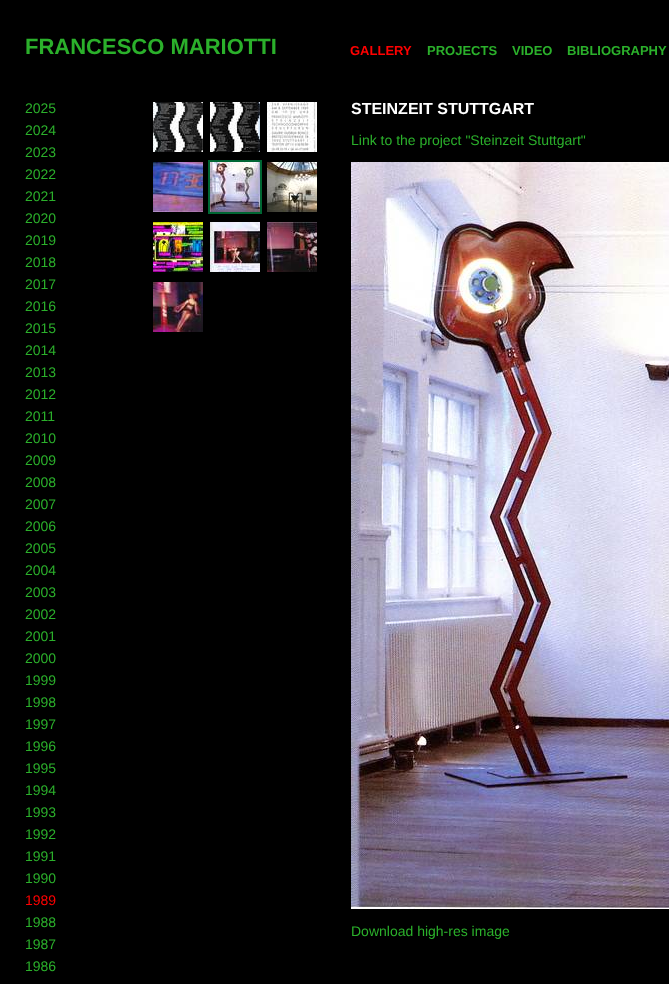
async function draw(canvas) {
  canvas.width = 669
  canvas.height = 984
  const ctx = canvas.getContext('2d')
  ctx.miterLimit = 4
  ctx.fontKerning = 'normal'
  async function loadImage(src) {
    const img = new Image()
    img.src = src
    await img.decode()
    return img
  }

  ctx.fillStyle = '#000'
  ctx.fillRect(0, 0, 669, 984)
  ctx.font = 'bold 22px Liberation Sans'
  ctx.fillStyle = '#2bb02b'
  ctx.fillText('FRANCESCO MARIOTTI', 25, 54)
  ctx.font = 'bold 13px Liberation Sans'
  ctx.fillStyle = '#f00'
  ctx.fillText('GALLERY', 350, 55)
  ctx.fillStyle = '#2bb02b'
  ctx.fillText('PROJECTS', 427, 55)
  ctx.fillText('VIDEO', 512, 55)
  ctx.fillText('BIBLIOGRAPHY', 567, 55)
  ctx.font = '14px Liberation Sans'
  ctx.fillText('2025', 25, 113)
  ctx.fillText('2024', 25, 135)
  ctx.fillText('2023', 25, 157)
  ctx.fillText('2022', 25, 179)
  ctx.fillText('2021', 25, 201)
  ctx.fillText('2020', 25, 223)
  ctx.fillText('2019', 25, 245)
  ctx.fillText('2018', 25, 267)
  ctx.fillText('2017', 25, 289)
  ctx.fillText('2016', 25, 311)
  ctx.fillText('2015', 25, 333)
  ctx.fillText('2014', 25, 355)
  ctx.fillText('2013', 25, 377)
  ctx.fillText('2012', 25, 399)
  ctx.fillText('2011', 25, 421)
  ctx.fillText('2010', 25, 443)
  ctx.fillText('2009', 25, 465)
  ctx.fillText('2008', 25, 487)
  ctx.fillText('2007', 25, 509)
  ctx.fillText('2006', 25, 531)
  ctx.fillText('2005', 25, 553)
  ctx.fillText('2004', 25, 575)
  ctx.fillText('2003', 25, 597)
  ctx.fillText('2002', 25, 619)
  ctx.fillText('2001', 25, 641)
  ctx.fillText('2000', 25, 663)
  ctx.fillText('1999', 25, 685)
  ctx.fillText('1998', 25, 707)
  ctx.fillText('1997', 25, 729)
  ctx.fillText('1996', 25, 751)
  ctx.fillText('1995', 25, 773)
  ctx.fillText('1994', 25, 795)
  ctx.fillText('1993', 25, 817)
  ctx.fillText('1992', 25, 839)
  ctx.fillText('1991', 25, 861)
  ctx.fillText('1990', 25, 883)
  ctx.fillStyle = '#f00'
  ctx.fillText('1989', 25, 905)
  ctx.fillStyle = '#2bb02b'
  ctx.fillText('1988', 25, 927)
  ctx.fillText('1987', 25, 949)
  ctx.fillText('1986', 25, 971)
  ctx.drawImage(await loadImage('image0.png'), 153, 102, 50, 50)
  ctx.drawImage(await loadImage('image1.png'), 210, 102, 50, 50)
  ctx.drawImage(await loadImage('image2.png'), 267, 102, 50, 50)
  ctx.drawImage(await loadImage('image3.png'), 153, 162, 50, 50)
  ctx.strokeStyle = '#063'
  ctx.lineWidth = 2
  ctx.strokeRect(209, 161, 52, 52)
  ctx.drawImage(await loadImage('image4.png'), 210, 162, 50, 50)
  ctx.drawImage(await loadImage('image5.png'), 267, 162, 50, 50)
  ctx.drawImage(await loadImage('image6.png'), 153, 222, 50, 50)
  ctx.drawImage(await loadImage('image7.png'), 210, 222, 50, 50)
  ctx.drawImage(await loadImage('image8.png'), 267, 222, 50, 50)
  ctx.drawImage(await loadImage('image9.png'), 153, 282, 50, 50)
  ctx.font = 'bold 16px Liberation Sans'
  ctx.fillStyle = '#fff'
  ctx.fillText('STEINZEIT STUTTGART', 351, 114)
  ctx.font = '14px Liberation Sans'
  ctx.fillStyle = '#2bb02b'
  ctx.fillText('Link to the project "Steinzeit Stuttgart"', 351, 145)
  ctx.drawImage(await loadImage('image10.png'), 351, 162, 318, 747)
  ctx.fillText('Download high-res image', 351, 936)
}

draw(document.querySelector('canvas'))
